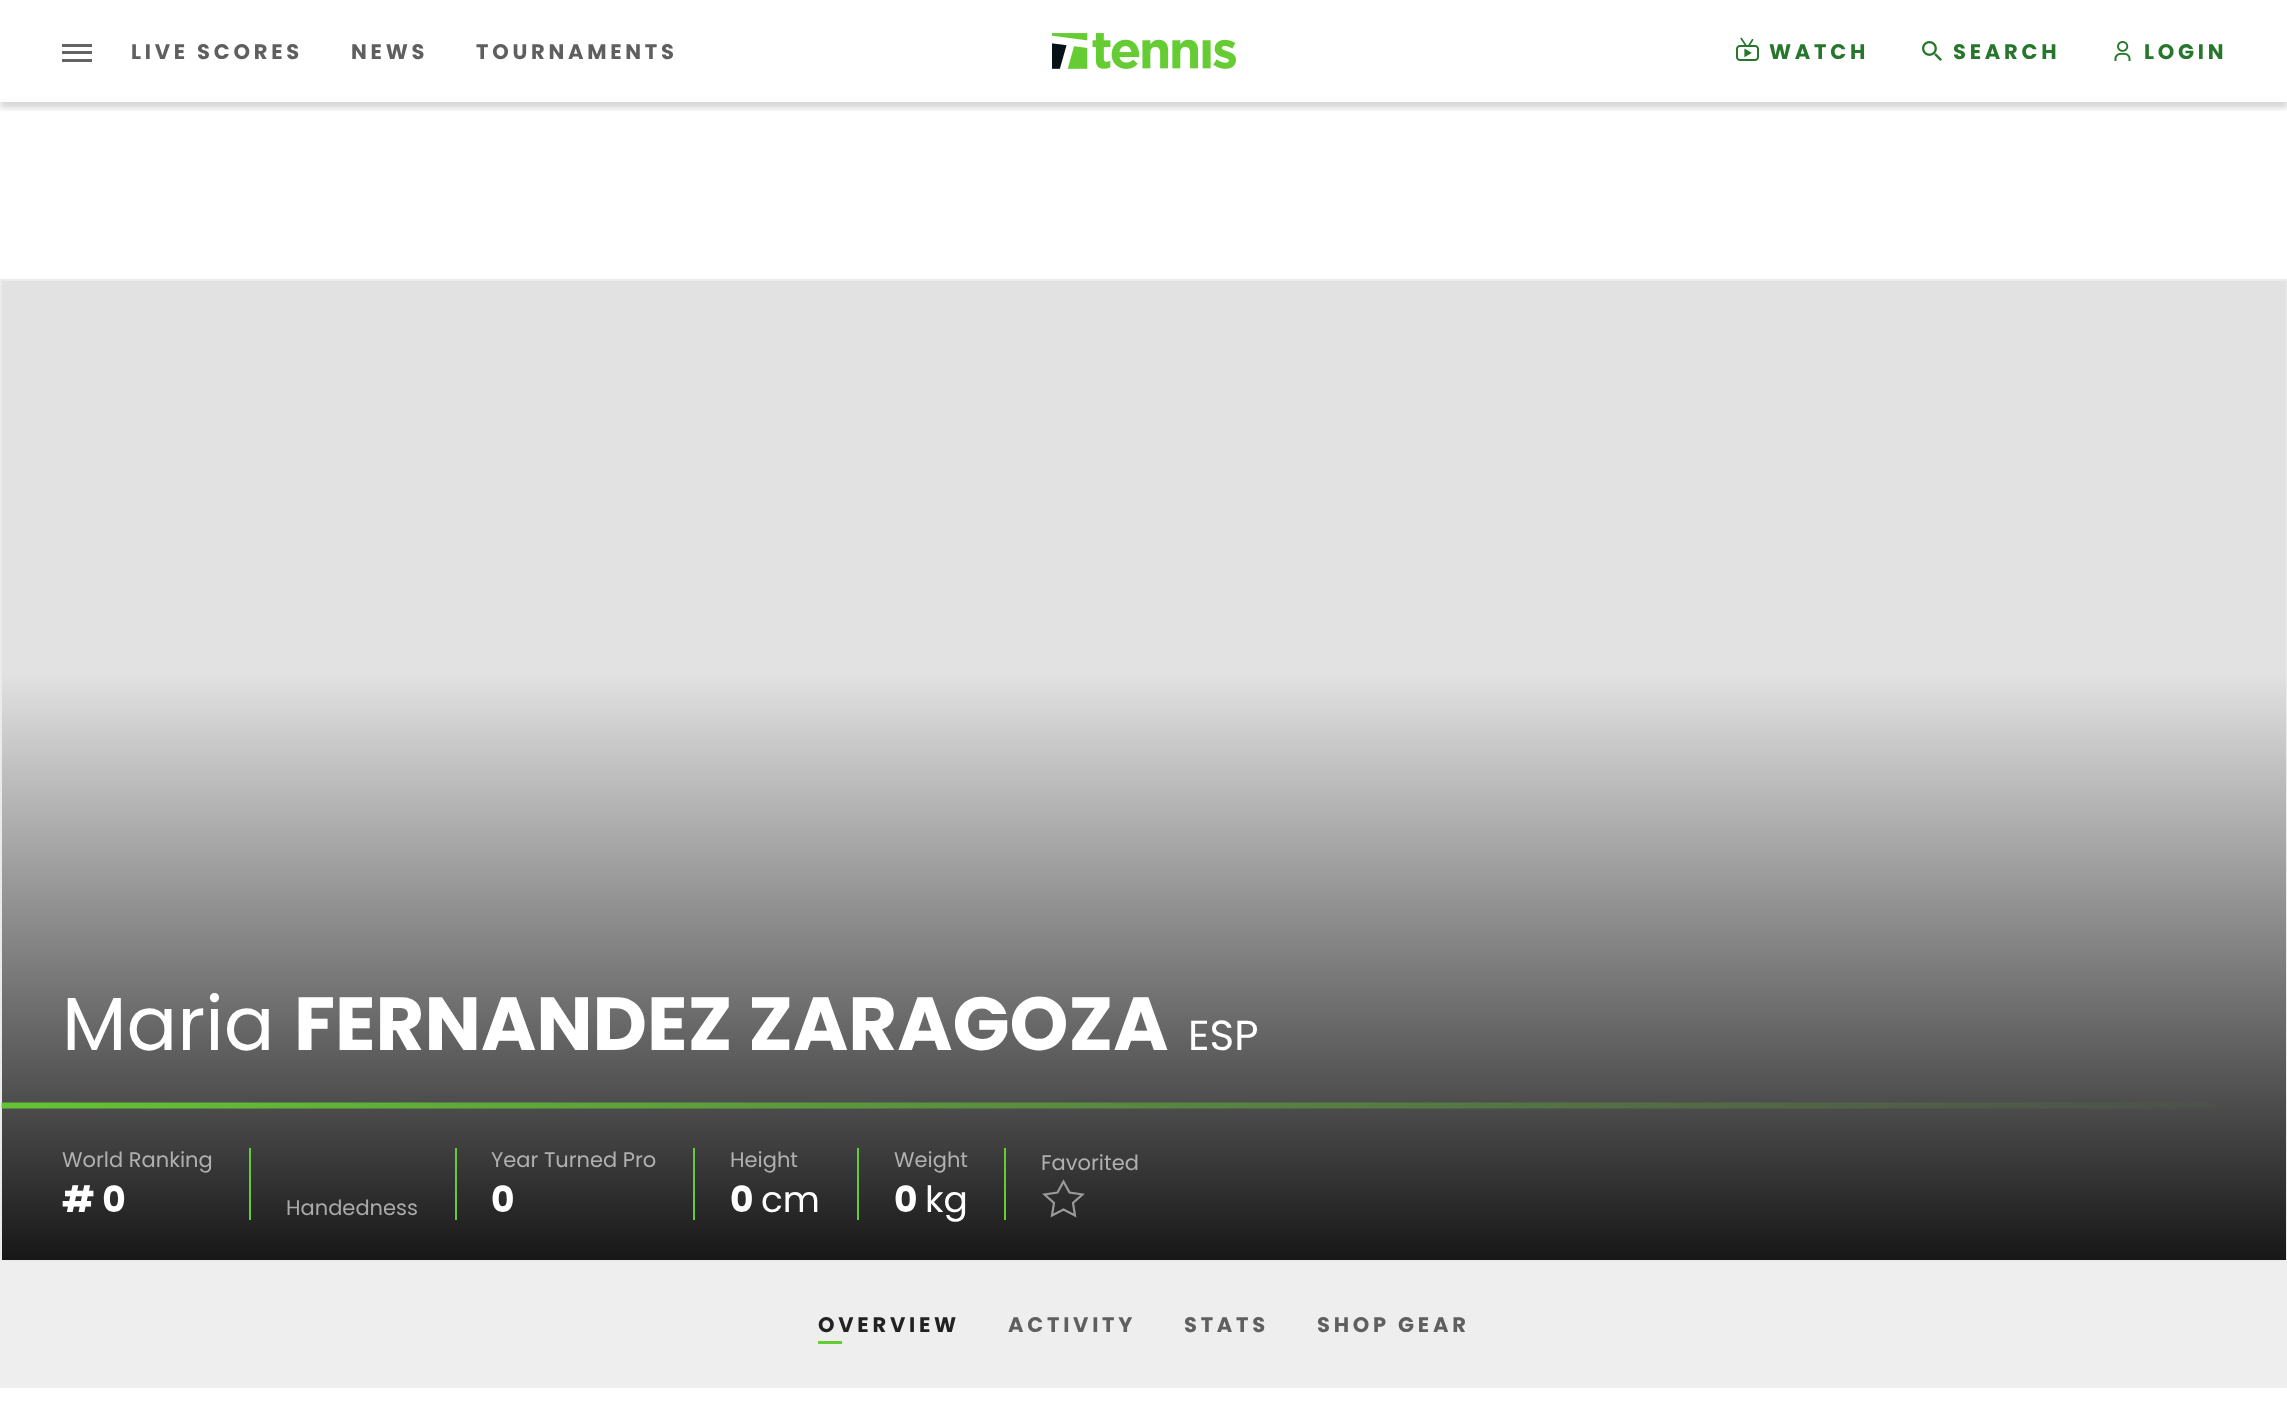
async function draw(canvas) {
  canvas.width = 2287
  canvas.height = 1401
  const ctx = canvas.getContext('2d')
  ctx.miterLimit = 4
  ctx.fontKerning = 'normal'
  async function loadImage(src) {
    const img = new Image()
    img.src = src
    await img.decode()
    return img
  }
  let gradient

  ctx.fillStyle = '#fff'
  ctx.fillRect(0, 0, 2287, 1401)
  ctx.save()
  ctx.beginPath()
  ctx.rect(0, 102, 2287, 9)
  ctx.clip()
  ctx.fillStyle = '#00000029'
  ctx.filter = 'blur(3px)'
  ctx.beginPath()
  ctx.rect(0, 6, 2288, 102)
  ctx.fill()
  ctx.filter = 'none'
  ctx.restore()
  ctx.fillStyle = '#646464'
  ctx.fillRect(62, 44, 30, 3)
  ctx.fillRect(62, 51, 30, 3)
  ctx.fillRect(62, 59, 30, 3)
  ctx.letterSpacing = '3.75px'
  ctx.font = 'bold 21px Poppins'
  ctx.fillStyle = '#5f5f5f'
  ctx.fillText('LIVE SCORES', 131, 59)
  ctx.fillText('NEWS', 351, 59)
  ctx.fillText('TOURNAMENTS', 476, 59)
  ctx.drawImage(await loadImage('image0.png'), 1052, 33, 184, 36)
  ctx.drawImage(await loadImage('image1.png'), 1736, 37, 23, 24)
  ctx.fillStyle = '#26762c'
  ctx.fillText('WATCH', 1769, 59)
  ctx.drawImage(await loadImage('image2.png'), 1922, 41, 20, 20)
  ctx.fillText('SEARCH', 1953, 59)
  ctx.drawImage(await loadImage('image3.png'), 2114, 41, 17, 20)
  ctx.fillText('LOGIN', 2144, 59)
  ctx.strokeStyle = '#ebebeb'
  ctx.lineWidth = 2
  ctx.strokeRect(1, 280, 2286, 981)
  gradient = ctx.createLinearGradient(1144, 280, 1144, 1260)
  gradient.addColorStop(0, '#e2e2e2')
  gradient.addColorStop(0.4, '#e2e2e2')
  gradient.addColorStop(1, '#171717')
  ctx.fillStyle = gradient
  ctx.fillRect(2, 281, 2284, 979)
  ctx.letterSpacing = '0px'
  ctx.font = '75px Poppins'
  ctx.fillStyle = '#fff'
  ctx.fillText('Maria', 62, 1050)
  ctx.font = 'bold 75px Poppins'
  ctx.fillText('FERNANDEZ ZARAGOZA', 294, 1050)
  ctx.font = '42px Poppins'
  ctx.fillText('ESP', 1188, 1050)
  ctx.drawImage(await loadImage('image4.png'), 1, 1102, 2215, 7)
  ctx.font = '21px Poppins'
  ctx.fillStyle = '#b0b0b0'
  ctx.fillText('World Ranking', 62, 1167)
  ctx.font = 'bold 36px Poppins'
  ctx.fillStyle = '#fff'
  ctx.fillText('# 0', 62, 1212)
  ctx.fillStyle = '#6c3'
  ctx.fillRect(455, 1148, 2, 72)
  ctx.font = '21px Poppins'
  ctx.fillStyle = '#b0b0b0'
  ctx.fillText('Year Turned Pro', 491, 1167)
  ctx.font = 'bold 36px Poppins'
  ctx.fillStyle = '#fff'
  ctx.fillText('0', 491, 1212)
  ctx.fillStyle = '#6c3'
  ctx.fillRect(693, 1148, 2, 72)
  ctx.font = '21px Poppins'
  ctx.fillStyle = '#b0b0b0'
  ctx.fillText('Height', 730, 1167)
  ctx.font = 'bold 36px Poppins'
  ctx.fillStyle = '#fff'
  ctx.fillText('0', 730, 1212)
  ctx.font = '36px Poppins'
  ctx.fillText('cm', 761, 1212)
  ctx.fillStyle = '#6c3'
  ctx.fillRect(857, 1148, 2, 72)
  ctx.font = '21px Poppins'
  ctx.fillStyle = '#b0b0b0'
  ctx.fillText('Weight', 894, 1167)
  ctx.font = 'bold 36px Poppins'
  ctx.fillStyle = '#fff'
  ctx.fillText('0', 894, 1212)
  ctx.font = '36px Poppins'
  ctx.fillText('kg', 925, 1212)
  ctx.fillStyle = '#6c3'
  ctx.fillRect(1004, 1148, 2, 72)
  ctx.font = '21px Poppins'
  ctx.fillStyle = '#b0b0b0'
  ctx.fillText('Favorited', 1041, 1170)
  ctx.beginPath()
  ctx.moveTo(1063.5, 1181.5)
  ctx.lineTo(1069.5, 1192.5)
  ctx.lineTo(1082.5, 1194.5)
  ctx.lineTo(1073, 1203)
  ctx.lineTo(1075, 1215.5)
  ctx.lineTo(1063.5, 1209.5)
  ctx.lineTo(1052, 1215.5)
  ctx.lineTo(1054, 1203)
  ctx.lineTo(1044.5, 1194.5)
  ctx.lineTo(1057.5, 1192.5)
  ctx.closePath()
  ctx.strokeStyle = '#999'
  ctx.lineWidth = 2.2
  ctx.stroke()
  ctx.fillStyle = '#6c3'
  ctx.fillRect(249, 1148, 2, 72)
  ctx.fillStyle = '#a9a9a9'
  ctx.fillText('Handedness', 286, 1215)
  ctx.fillStyle = '#eee'
  ctx.fillRect(0, 1262, 2287, 126)
  ctx.letterSpacing = '3.75px'
  ctx.font = 'bold 21px Poppins'
  ctx.fillStyle = '#222'
  ctx.fillText('OVERVIEW', 818, 1332)
  ctx.fillStyle = '#6c3'
  ctx.fillRect(818, 1341, 24, 3)
  ctx.fillStyle = '#5f5f5f'
  ctx.fillText('ACTIVITY', 1008, 1332)
  ctx.fillText('STATS', 1184, 1332)
  ctx.fillText('SHOP GEAR', 1317, 1332)
}

draw(document.querySelector('canvas'))
